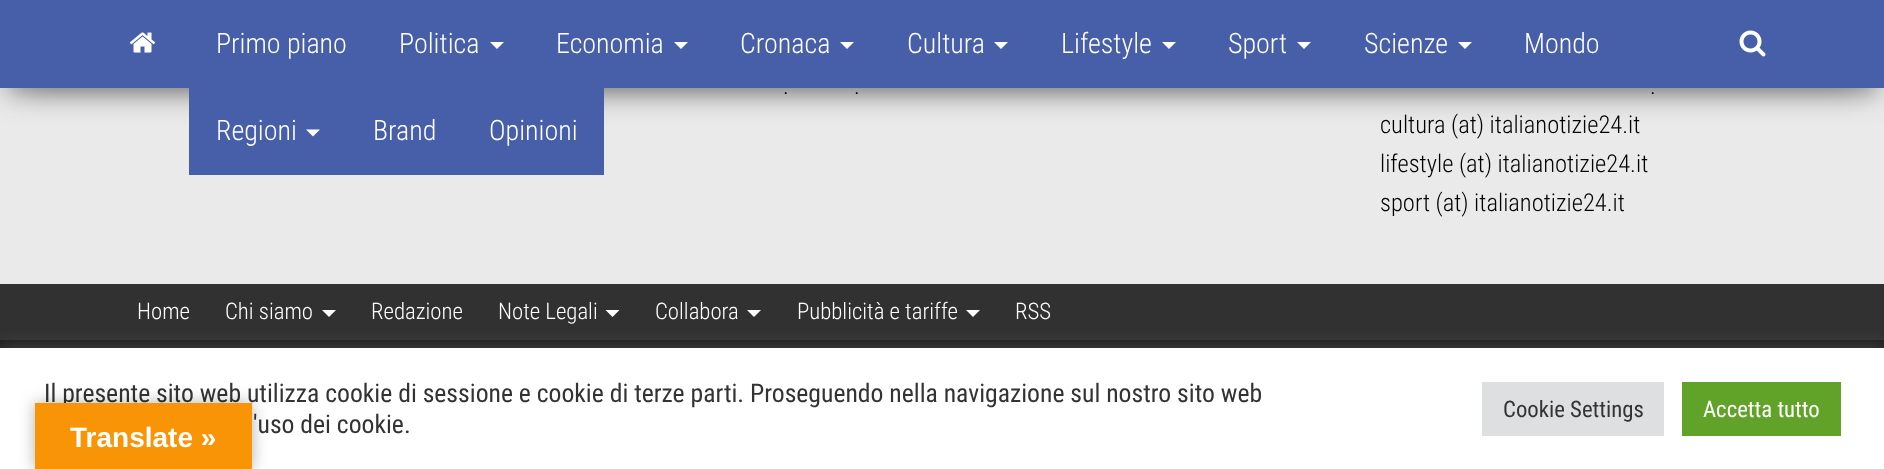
async function draw(canvas) {
  canvas.width = 1884
  canvas.height = 469
  const ctx = canvas.getContext('2d')
  ctx.miterLimit = 4
  ctx.fontKerning = 'normal'
  async function loadImage(src) {
    const img = new Image()
    img.src = src
    await img.decode()
    return img
  }

  ctx.fillStyle = '#ebeaea'
  ctx.fillRect(0, 0, 1884, 469)
  ctx.fillStyle = '#00000033'
  ctx.filter = 'blur(9px)'
  ctx.beginPath()
  ctx.rect(9, 23, 1867, 70)
  ctx.fill()
  ctx.filter = 'none'
  ctx.fillStyle = '#0000001f'
  ctx.filter = 'blur(17.5px)'
  ctx.beginPath()
  ctx.rect(0, 5, 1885, 88)
  ctx.fill()
  ctx.filter = 'none'
  ctx.fillStyle = '#0000006b'
  ctx.filter = 'blur(17.5px)'
  ctx.beginPath()
  ctx.rect(21, 39, 1843, 45)
  ctx.fill()
  ctx.filter = 'none'
  ctx.fillStyle = '#475ea8'
  ctx.fillRect(0, 0, 1884, 88)
  ctx.drawImage(await loadImage('image0.png'), 129, 32, 27, 21)
  ctx.font = '300 28px Roboto Condensed'
  ctx.fillStyle = '#fff'
  ctx.fillText('Primo piano', 216, 53)
  ctx.fillText('Politica', 399, 53)
  ctx.beginPath()
  ctx.moveTo(490, 42)
  ctx.lineTo(504, 42)
  ctx.lineTo(497, 49)
  ctx.closePath()
  ctx.fill()
  ctx.fillText('Economia', 556, 53)
  ctx.beginPath()
  ctx.moveTo(674, 42)
  ctx.lineTo(688, 42)
  ctx.lineTo(681, 49)
  ctx.closePath()
  ctx.fill()
  ctx.fillText('Cronaca', 740, 53)
  ctx.beginPath()
  ctx.moveTo(840, 42)
  ctx.lineTo(854, 42)
  ctx.lineTo(847, 49)
  ctx.closePath()
  ctx.fill()
  ctx.fillText('Cultura', 907, 53)
  ctx.beginPath()
  ctx.moveTo(994, 42)
  ctx.lineTo(1008, 42)
  ctx.lineTo(1001, 49)
  ctx.closePath()
  ctx.fill()
  ctx.fillText('Lifestyle', 1061, 53)
  ctx.beginPath()
  ctx.moveTo(1162, 42)
  ctx.lineTo(1176, 42)
  ctx.lineTo(1169, 49)
  ctx.closePath()
  ctx.fill()
  ctx.fillText('Sport', 1228, 53)
  ctx.beginPath()
  ctx.moveTo(1297, 42)
  ctx.lineTo(1311, 42)
  ctx.lineTo(1304, 49)
  ctx.closePath()
  ctx.fill()
  ctx.fillText('Scienze', 1364, 53)
  ctx.beginPath()
  ctx.moveTo(1458, 42)
  ctx.lineTo(1472, 42)
  ctx.lineTo(1465, 49)
  ctx.closePath()
  ctx.fill()
  ctx.fillText('Mondo', 1524, 53)
  ctx.fillStyle = '#475ea8'
  ctx.fillRect(189, 88, 415, 87)
  ctx.fillStyle = '#fff'
  ctx.fillText('Regioni', 216, 140)
  ctx.beginPath()
  ctx.moveTo(306, 129.5)
  ctx.lineTo(320, 129.5)
  ctx.lineTo(313, 136.5)
  ctx.closePath()
  ctx.fill()
  ctx.fillText('Brand', 373, 140)
  ctx.fillText('Opinioni', 489, 140)
  ctx.drawImage(await loadImage('image1.png'), 1739, 30, 27, 27)
  ctx.font = '300 24.5px Roboto Condensed'
  ctx.fillStyle = '#000'
  ctx.fillText('.', 783, 94)
  ctx.fillText('.', 854, 94)
  ctx.fillText('.', 1650, 94)
  ctx.fillText('cultura (at) italianotizie24.it', 1380, 133)
  ctx.fillText('lifestyle (at) italianotizie24.it', 1380, 172)
  ctx.fillText('sport (at) italianotizie24.it', 1380, 211)
  ctx.fillStyle = '#313131'
  ctx.fillRect(0, 284, 1884, 56)
  ctx.font = '300 22.75px Roboto Condensed'
  ctx.fillStyle = '#fff'
  ctx.fillText('Home', 137, 319)
  ctx.fillText('Chi siamo', 225, 319)
  ctx.beginPath()
  ctx.moveTo(322, 310)
  ctx.lineTo(336, 310)
  ctx.lineTo(329, 317)
  ctx.closePath()
  ctx.fill()
  ctx.fillText('Redazione', 371, 319)
  ctx.fillText('Note Legali', 498, 319)
  ctx.beginPath()
  ctx.moveTo(605.5, 310)
  ctx.lineTo(619.5, 310)
  ctx.lineTo(612.5, 317)
  ctx.closePath()
  ctx.fill()
  ctx.fillText('Collabora', 655, 319)
  ctx.beginPath()
  ctx.moveTo(747, 310)
  ctx.lineTo(761, 310)
  ctx.lineTo(754, 317)
  ctx.closePath()
  ctx.fill()
  ctx.fillText('Pubblicità e tariffe', 797, 319)
  ctx.beginPath()
  ctx.moveTo(966, 310)
  ctx.lineTo(980, 310)
  ctx.lineTo(973, 317)
  ctx.closePath()
  ctx.fill()
  ctx.fillText('RSS', 1015, 319)
  ctx.fillStyle = '#1e1e1e'
  ctx.fillRect(0, 340, 1884, 8)
  ctx.fillStyle = '#acabab4d'
  ctx.filter = 'blur(9px)'
  ctx.beginPath()
  ctx.rect(0, 347, 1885, 120)
  ctx.fill()
  ctx.filter = 'none'
  ctx.fillStyle = '#fff'
  ctx.fillRect(0, 348, 1884, 121)
  ctx.font = '25.65px Roboto Condensed'
  ctx.fillStyle = '#333'
  ctx.fillText('Il presente sito web utilizza cookie di sessione e cookie di terze parti. Proseguendo nella navigazione sul nostro sito web', 44, 402)
  ctx.fillText('\'uso dei cookie.', 253, 433)
  ctx.fillStyle = '#dedfe0'
  ctx.fillRect(1482, 382, 182, 54)
  ctx.font = '22.75px Roboto Condensed'
  ctx.fillStyle = '#333'
  ctx.fillText('Cookie Settings', 1503, 417)
  ctx.fillStyle = '#61a229'
  ctx.fillRect(1682, 382, 159, 54)
  ctx.fillStyle = '#fff'
  ctx.fillText('Accetta tutto', 1703, 417)
  ctx.fillStyle = '#0000004d'
  ctx.filter = 'blur(8px)'
  ctx.beginPath()
  ctx.rect(35, 403, 217, 66)
  ctx.fill()
  ctx.filter = 'none'
  ctx.fillStyle = '#f89406'
  ctx.fillRect(35, 403, 217, 66)
  ctx.font = 'bold 28px Liberation Sans'
  ctx.fillStyle = '#fff'
  ctx.fillText('Translate »', 70, 447)
}

draw(document.querySelector('canvas'))
